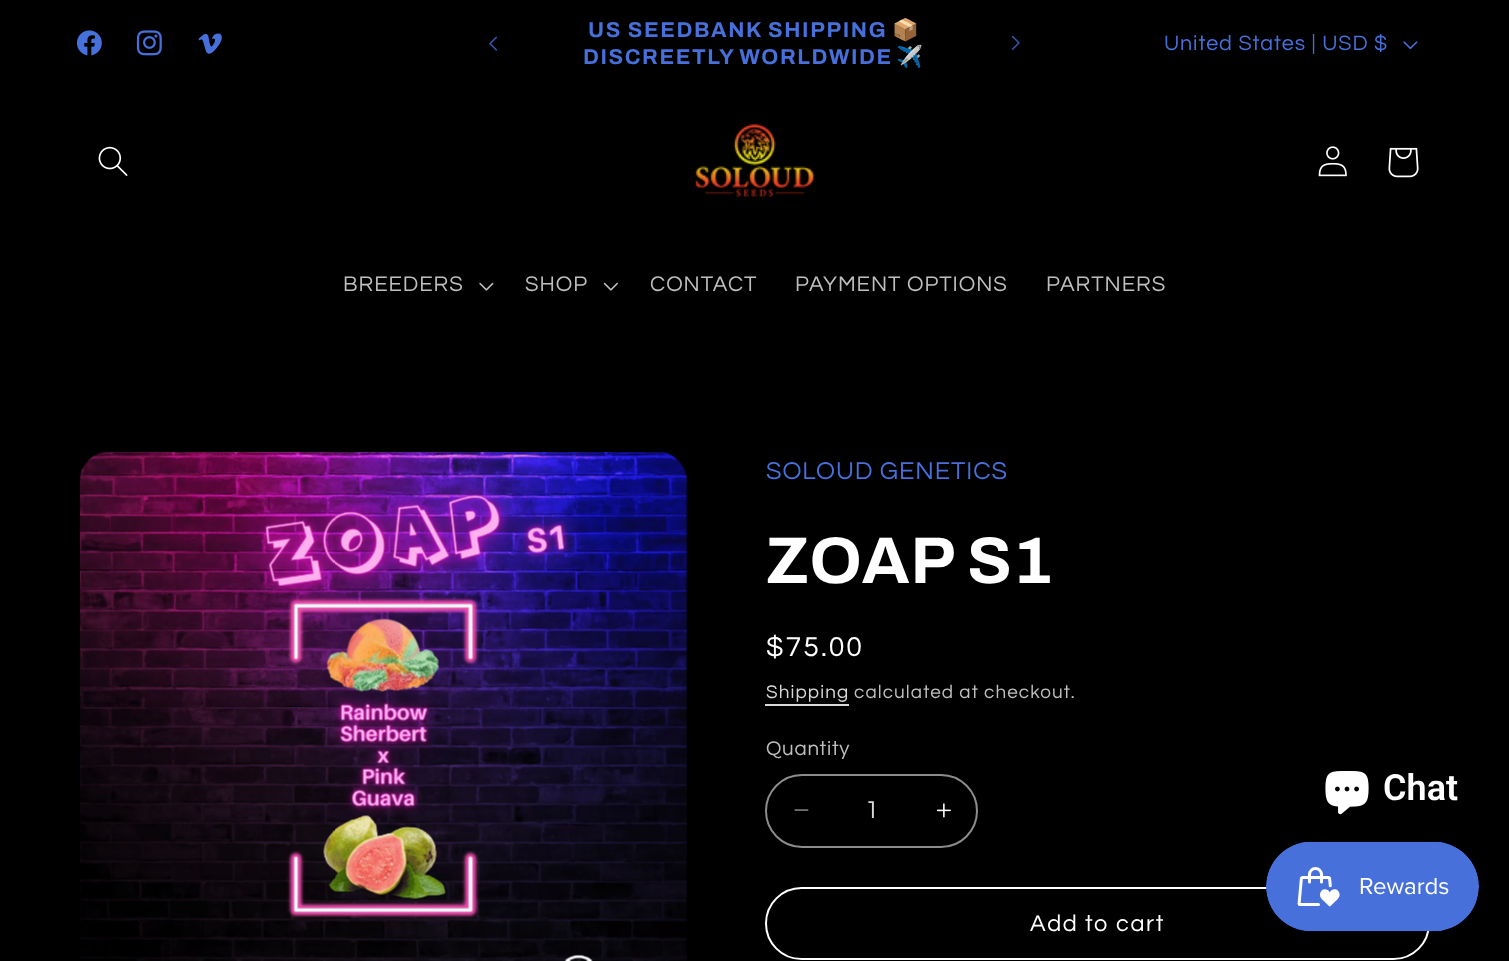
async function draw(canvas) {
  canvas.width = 1509
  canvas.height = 961
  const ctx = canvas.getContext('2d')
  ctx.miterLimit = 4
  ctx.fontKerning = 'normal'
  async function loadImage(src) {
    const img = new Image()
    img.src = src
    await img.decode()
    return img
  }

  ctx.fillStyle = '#000'
  ctx.fillRect(0, 0, 1509, 961)
  ctx.drawImage(await loadImage('image0.png'), 76, 30, 26, 26)
  ctx.drawImage(await loadImage('image1.png'), 136, 30, 26, 26)
  ctx.drawImage(await loadImage('image2.png'), 198, 33, 24, 21)
  ctx.drawImage(await loadImage('image3.png'), 489, 36, 8, 15)
  ctx.letterSpacing = '1.6px'
  ctx.font = 'bold 21.5px Archivo'
  ctx.fillStyle = '#4770db'
  ctx.fillText('US SEEDBANK SHIPPING', 588, 37)
  ctx.font = 'bold 21.5px Noto Color Emoji'
  ctx.fillText('📦', 892, 37)
  ctx.wordSpacing = '-1px'
  ctx.font = 'bold 21.5px Archivo'
  ctx.fillText('DISCREETLY WORLDWIDE', 583, 64)
  ctx.wordSpacing = '0px'
  ctx.font = 'bold 21.5px Noto Color Emoji'
  ctx.fillText('✈️', 896, 64)
  ctx.drawImage(await loadImage('image4.png'), 1011, 35, 9, 15)
  ctx.letterSpacing = '0.95px'
  ctx.font = '21.5px Questrial'
  ctx.fillText('United States | USD $', 1164, 50)
  ctx.drawImage(await loadImage('image5.png'), 1403, 41, 15, 9)
  ctx.drawImage(await loadImage('image6.png'), 98, 146, 30, 30)
  ctx.drawImage(await loadImage('image7.png'), 694, 124, 121, 73)
  ctx.drawImage(await loadImage('image8.png'), 1318, 146, 29, 31)
  ctx.drawImage(await loadImage('image9.png'), 1388, 147, 31, 31)
  ctx.font = '22px Questrial'
  ctx.fillStyle = '#bfbfbf'
  ctx.fillText('BREEDERS', 343, 291)
  ctx.drawImage(await loadImage('image10.png'), 479, 282, 15, 9)
  ctx.fillText('SHOP', 525, 291)
  ctx.drawImage(await loadImage('image11.png'), 603, 282, 15, 9)
  ctx.fillText('CONTACT', 650, 291)
  ctx.fillText('PAYMENT OPTIONS', 795, 291)
  ctx.fillText('PARTNERS', 1046, 291)
  ctx.drawImage(await loadImage('image12.png'), 80, 452, 607, 509)
  ctx.font = '25.25px Questrial'
  ctx.fillStyle = '#4770db'
  ctx.fillText('SOLOUD GENETICS', 766, 479)
  ctx.letterSpacing = '1px'
  ctx.font = 'bold 66px Archivo'
  ctx.fillStyle = '#fff'
  ctx.fillText('ZOAP S1', 766, 583)
  ctx.letterSpacing = '2px'
  ctx.font = '28.5px Questrial'
  ctx.fillText('$75.00', 766, 656)
  ctx.letterSpacing = '1.1px'
  ctx.font = '18.9px Questrial'
  ctx.fillStyle = '#d9d9d9'
  ctx.fillText('Shipping', 766, 698)
  ctx.fillRect(765, 704, 84, 2)
  ctx.fillStyle = '#bfbfbf'
  ctx.fillText('calculated at checkout.', 854, 698)
  ctx.letterSpacing = '0.75px'
  ctx.font = '20.5px Questrial'
  ctx.fillText('Quantity', 766, 755)
  ctx.drawImage(await loadImage('image13.png'), 794, 809, 15, 2)
  ctx.drawImage(await loadImage('image14.png'), 936, 803, 15, 15)
  ctx.beginPath()
  ctx.roundRect(766, 775, 211, 72, 36)
  ctx.strokeStyle = '#8c8c8c'
  ctx.lineWidth = 2
  ctx.stroke()
  ctx.letterSpacing = '0px'
  ctx.font = '25.25px Questrial'
  ctx.fillStyle = '#d9d9d9'
  ctx.fillText('1', 865, 818)
  ctx.beginPath()
  ctx.roundRect(766, 888, 663, 71, 35.5)
  ctx.strokeStyle = '#fff'
  ctx.stroke()
  ctx.letterSpacing = '1.6px'
  ctx.font = '23.5px Questrial'
  ctx.fillStyle = '#fff'
  ctx.fillText('Add to cart', 1030, 931)
  ctx.drawImage(await loadImage('image15.png'), 1325, 771, 44, 44)
  ctx.letterSpacing = '0px'
  ctx.font = '600 36px Roboto'
  ctx.fillText('Chat', 1383, 800)
  ctx.fillStyle = '#0000000d'
  ctx.filter = 'blur(19px)'
  ctx.beginPath()
  ctx.roundRect(1266, 842, 213, 90, 45)
  ctx.fill()
  ctx.filter = 'none'
  ctx.drawImage(await loadImage('image16.png'), 1266, 841, 213, 91)
}

draw(document.querySelector('canvas'))
